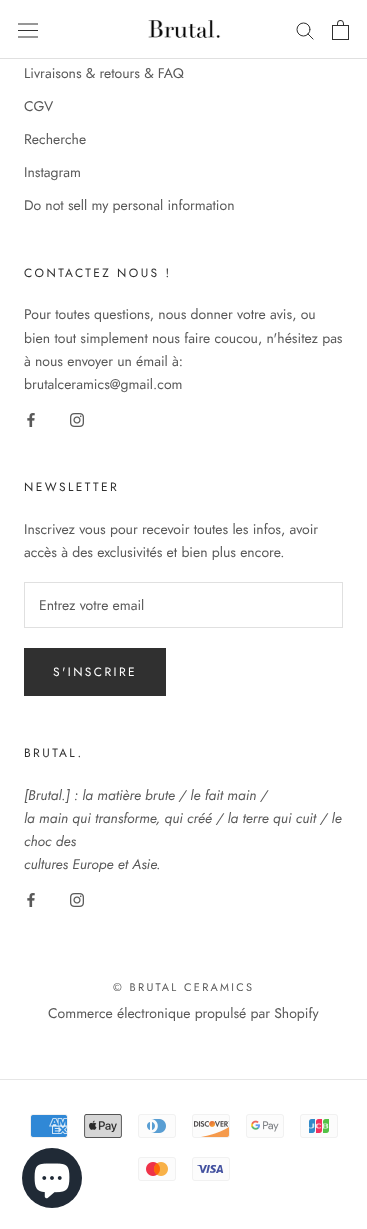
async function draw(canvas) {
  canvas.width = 367
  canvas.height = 1229
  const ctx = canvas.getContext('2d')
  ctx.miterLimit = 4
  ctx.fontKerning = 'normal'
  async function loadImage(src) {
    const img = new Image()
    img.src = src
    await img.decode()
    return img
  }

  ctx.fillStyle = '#fff'
  ctx.fillRect(0, 0, 367, 1229)
  ctx.fillStyle = '#e0e0e0'
  ctx.fillRect(0, 58, 367, 1)
  ctx.drawImage(await loadImage('image0.png'), 18, 23, 20, 15)
  ctx.drawImage(await loadImage('image1.png'), 148, 20, 73, 18)
  ctx.beginPath()
  ctx.moveTo(313, 39)
  ctx.lineTo(308, 34)
  ctx.strokeStyle = '#303030'
  ctx.lineCap = 'square'
  ctx.stroke()
  ctx.beginPath()
  ctx.arc(303.5, 29.5, 6.5, 0, 2 * Math.PI)
  ctx.stroke()
  ctx.drawImage(await loadImage('image2.png'), 332, 20, 17, 20)
  ctx.font = '14px Jost'
  ctx.fillStyle = '#595959'
  ctx.fillText('Livraisons & retours & FAQ', 24, 78)
  ctx.fillText('CGV', 24, 111)
  ctx.fillText('Recherche', 24, 144)
  ctx.fillText('Instagram', 24, 177)
  ctx.fillText('Do not sell my personal information', 24, 210)
  ctx.letterSpacing = '2.4px'
  ctx.font = '12px Jost'
  ctx.fillStyle = '#303030'
  ctx.fillText('CONTACTEZ NOUS !', 24, 277)
  ctx.letterSpacing = '0px'
  ctx.font = '14px Jost'
  ctx.fillStyle = '#595959'
  ctx.fillText('Pour toutes questions, nous donner votre avis, ou', 24, 319)
  ctx.fillText('bien tout simplement nous faire coucou, n\'hésitez pas', 24, 343)
  ctx.fillText('à nous envoyer un émail à:', 24, 366)
  ctx.fillText('brutalceramics@gmail.com', 24, 389)
  ctx.drawImage(await loadImage('image3.png'), 27, 413, 8, 14)
  ctx.drawImage(await loadImage('image4.png'), 70, 413, 14, 14)
  ctx.letterSpacing = '2.4px'
  ctx.font = '12px Jost'
  ctx.fillStyle = '#303030'
  ctx.fillText('NEWSLETTER', 24, 491)
  ctx.letterSpacing = '0px'
  ctx.font = '14px Jost'
  ctx.fillStyle = '#595959'
  ctx.fillText('Inscrivez vous pour recevoir toutes les infos, avoir', 24, 534)
  ctx.fillText('accès à des exclusivités et bien plus encore.', 24, 557)
  ctx.strokeStyle = '#e0e0e0'
  ctx.strokeRect(24.5, 582.5, 318, 45)
  ctx.fillText('Entrez votre email', 39, 610)
  ctx.strokeStyle = '#303030'
  ctx.strokeRect(24.5, 648.5, 141, 47)
  ctx.fillStyle = '#303030'
  ctx.fillRect(25, 649, 140, 46)
  ctx.letterSpacing = '2.4px'
  ctx.font = '12px Jost'
  ctx.fillStyle = '#fff'
  ctx.fillText('S\'INSCRIRE', 53, 676)
  ctx.fillStyle = '#303030'
  ctx.fillText('BRUTAL.', 24, 757)
  ctx.letterSpacing = '0px'
  ctx.font = 'italic 14px Jost'
  ctx.fillStyle = '#595959'
  ctx.fillText('[Brutal.] : la matière brute / le fait main /', 24, 800)
  ctx.fillText('la main qui transforme, qui créé / la terre qui cuit / le', 24, 823)
  ctx.fillText('choc des', 24, 846)
  ctx.fillText('cultures Europe et Asie.', 24, 869)
  ctx.drawImage(await loadImage('image3.png'), 27, 893, 8, 14)
  ctx.drawImage(await loadImage('image4.png'), 70, 893, 14, 14)
  ctx.letterSpacing = '2.25px'
  ctx.font = '11px Jost'
  ctx.fillText('© BRUTAL CERAMICS', 113, 991)
  ctx.letterSpacing = '0px'
  ctx.font = '14px Jost'
  ctx.fillText('Commerce électronique propulsé par Shopify', 48, 1018)
  ctx.fillStyle = '#e6e6e6'
  ctx.fillRect(0, 1079, 367, 1)
  ctx.drawImage(await loadImage('image5.png'), 30, 1114, 38, 24)
  ctx.drawImage(await loadImage('image6.png'), 84, 1114, 38, 24)
  ctx.drawImage(await loadImage('image7.png'), 138, 1114, 38, 24)
  ctx.drawImage(await loadImage('image8.png'), 192, 1114, 38, 24)
  ctx.drawImage(await loadImage('image9.png'), 246, 1114, 38, 24)
  ctx.drawImage(await loadImage('image10.png'), 300, 1114, 38, 24)
  ctx.drawImage(await loadImage('image11.png'), 138, 1157, 38, 24)
  ctx.drawImage(await loadImage('image12.png'), 192, 1157, 38, 24)
  ctx.fillStyle = '#202a36'
  ctx.beginPath()
  ctx.arc(52, 1178, 30, 0, 2 * Math.PI)
  ctx.fill()
  ctx.drawImage(await loadImage('image13.png'), 34, 1163, 36, 36)
}

draw(document.querySelector('canvas'))
